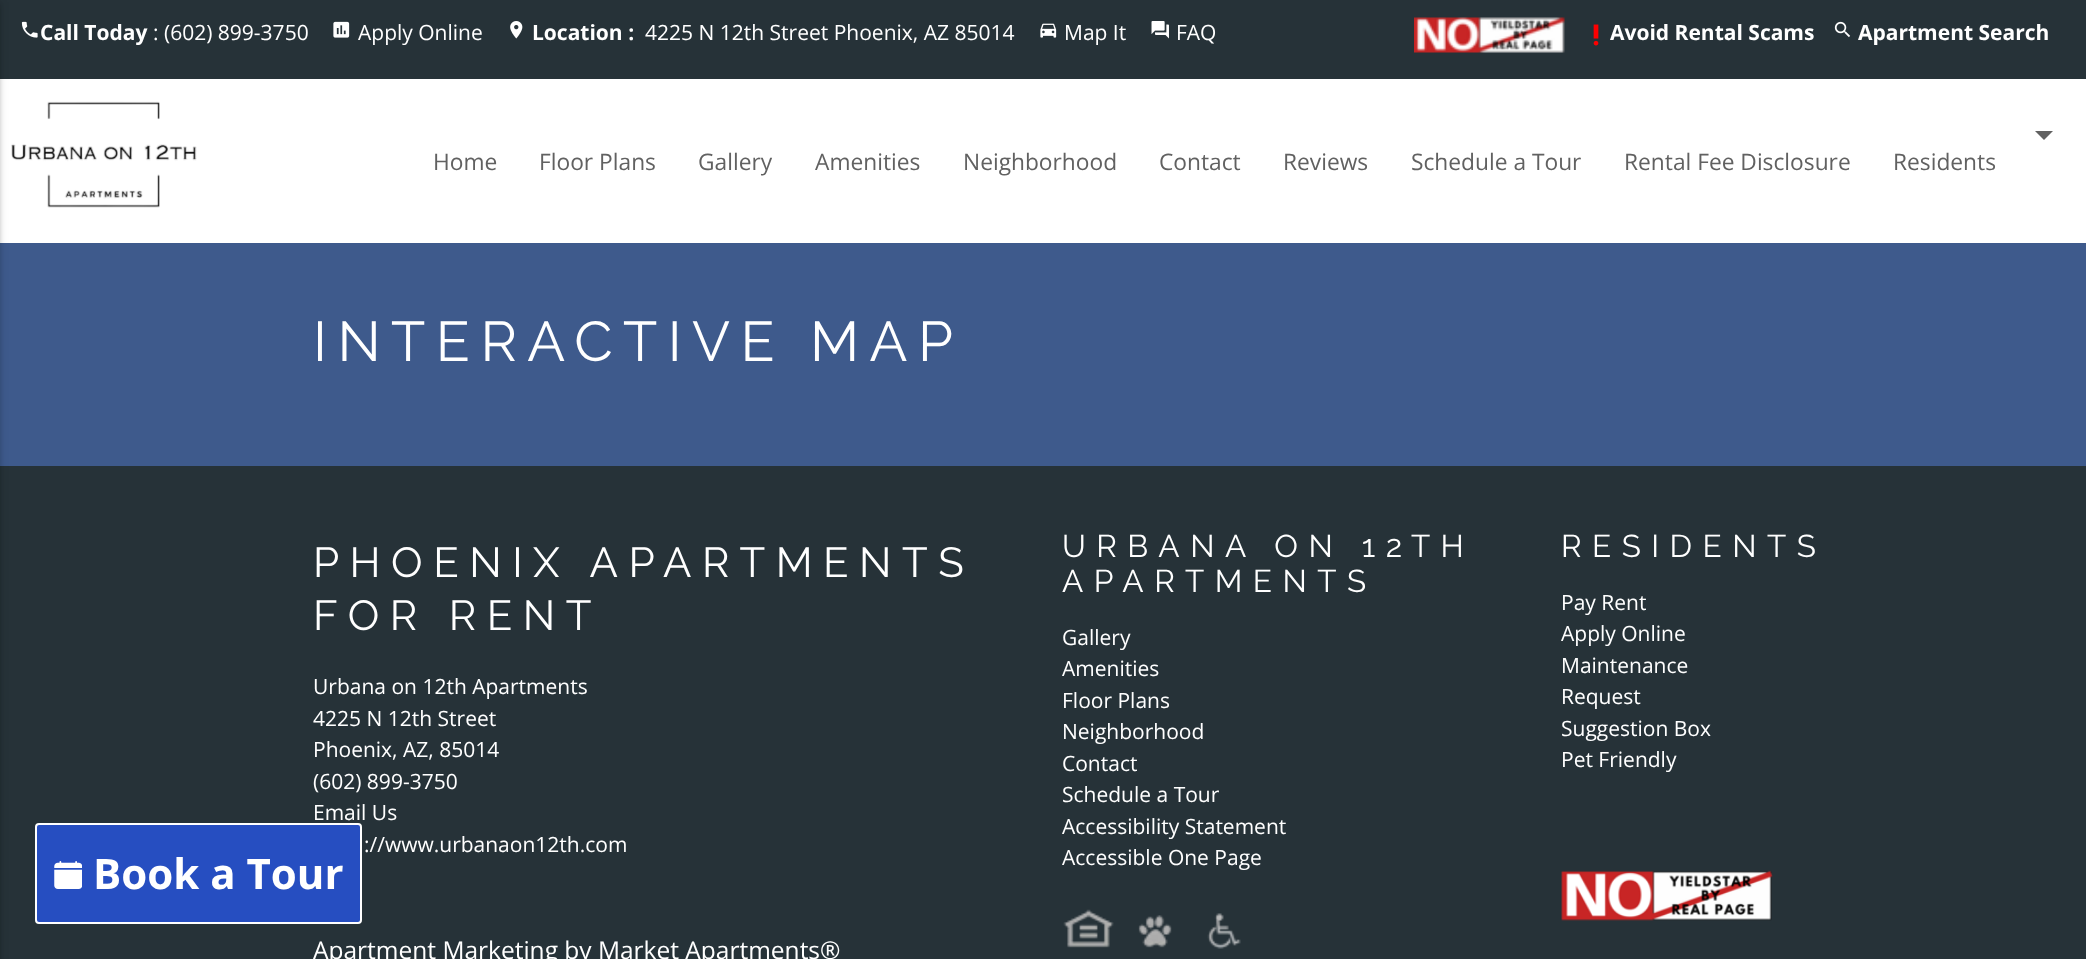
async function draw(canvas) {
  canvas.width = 2086
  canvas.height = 959
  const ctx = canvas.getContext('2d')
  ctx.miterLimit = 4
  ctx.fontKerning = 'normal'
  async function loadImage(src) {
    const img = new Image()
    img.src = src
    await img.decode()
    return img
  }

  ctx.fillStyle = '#263238'
  ctx.fillRect(0, 0, 2086, 959)
  ctx.drawImage(await loadImage('image0.png'), 21, 21, 17, 17)
  ctx.font = 'bold 21px Open Sans'
  ctx.fillStyle = '#fff'
  ctx.fillText('Call Today', 40, 40)
  ctx.font = '21px Open Sans'
  ctx.fillText(': (602) 899-3750', 153, 40)
  ctx.drawImage(await loadImage('image1.png'), 333, 21, 17, 17)
  ctx.fillText('Apply Online', 358, 40)
  ctx.drawImage(await loadImage('image2.png'), 510, 21, 13, 18)
  ctx.font = 'bold 21px Open Sans'
  ctx.fillText('Location :', 532, 40)
  ctx.font = '21px Open Sans'
  ctx.fillText('4225 N 12th Street Phoenix, AZ 85014', 645, 40)
  ctx.drawImage(await loadImage('image3.png'), 1040, 23, 17, 15)
  ctx.fillText('Map It', 1064, 40)
  ctx.drawImage(await loadImage('image4.png'), 1151, 21, 18, 18)
  ctx.fillText('FAQ', 1176, 40)
  ctx.drawImage(await loadImage('image5.png'), 1414, 17, 151, 36)
  ctx.drawImage(await loadImage('image6.png'), 1593, 24, 6, 22)
  ctx.font = 'bold 21px Open Sans'
  ctx.fillText('Avoid Rental Scams', 1610, 40)
  ctx.drawImage(await loadImage('image7.png'), 1834, 21, 17, 17)
  ctx.fillText('Apartment Search', 1858, 40)
  ctx.fillRect(0, 79, 2086, 164)
  ctx.drawImage(await loadImage('image8.png'), 11, 101, 186, 107)
  ctx.fillStyle = '#3e5a8c'
  ctx.fillRect(0, 243, 2086, 223)
  ctx.fillStyle = '#0000001f'
  ctx.filter = 'blur(4.5px)'
  ctx.beginPath()
  ctx.rect(-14, 2, 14, 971)
  ctx.fill()
  ctx.filter = 'none'
  ctx.fillStyle = '#00000024'
  ctx.filter = 'blur(2px)'
  ctx.beginPath()
  ctx.rect(-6, 4, 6, 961)
  ctx.fill()
  ctx.filter = 'none'
  ctx.font = '22.75px Open Sans'
  ctx.fillStyle = '#616161'
  ctx.fillText('Home', 433, 170)
  ctx.fillText('Floor Plans', 539, 170)
  ctx.fillText('Gallery', 698, 170)
  ctx.fillText('Amenities', 815, 170)
  ctx.fillText('Neighborhood', 963, 170)
  ctx.fillText('Contact', 1159, 170)
  ctx.fillText('Reviews', 1283, 170)
  ctx.fillText('Schedule a Tour', 1411, 170)
  ctx.fillText('Rental Fee Disclosure', 1624, 170)
  ctx.beginPath()
  ctx.moveTo(2035, 131)
  ctx.lineTo(2053, 131)
  ctx.lineTo(2044, 140)
  ctx.closePath()
  ctx.fill()
  ctx.fillText('Residents', 1893, 170)
  ctx.letterSpacing = '10.5px'
  ctx.font = '56px Raleway'
  ctx.fillStyle = '#fff'
  ctx.fillText('INTERACTIVE MAP', 313, 361)
  ctx.fillStyle = '#264ec1'
  ctx.beginPath()
  ctx.roundRect(36, 824, 325, 99, 3)
  ctx.fill()
  ctx.strokeStyle = '#fff'
  ctx.lineWidth = 2
  ctx.stroke()
  ctx.drawImage(await loadImage('image9.png'), 54, 861, 28, 28)
  ctx.letterSpacing = '0px'
  ctx.font = 'bold 42px Open Sans'
  ctx.fillStyle = '#fff'
  ctx.fillText('Book a Tour', 93, 889)
  ctx.letterSpacing = '10.5px'
  ctx.font = '42px Raleway'
  ctx.fillText('PHOENIX APARTMENTS', 313, 577)
  ctx.fillText('FOR RENT', 313, 630)
  ctx.letterSpacing = '0px'
  ctx.font = '21px Open Sans'
  ctx.fillText('Urbana on 12th Apartments', 313, 694)
  ctx.fillText('4225 N 12th Street', 313, 726)
  ctx.fillText('Phoenix, AZ, 85014', 313, 757)
  ctx.fillText('(602) 899-3750', 313, 789)
  ctx.fillText('Email Us', 313, 820)
  ctx.fillText('://www.urbanaon12th.com', 364, 852)
  ctx.font = '24.5px Open Sans'
  ctx.fillText('Apartment Marketing by Market Apartments®', 313, 959)
  ctx.letterSpacing = '10.5px'
  ctx.font = '31.5px Raleway'
  ctx.fillText('URBANA ON 12TH', 1062, 557)
  ctx.fillText('APARTMENTS', 1062, 592)
  ctx.letterSpacing = '0px'
  ctx.font = '21px Open Sans'
  ctx.fillText('Gallery', 1062, 645)
  ctx.fillText('Amenities', 1062, 676)
  ctx.fillText('Floor Plans', 1062, 708)
  ctx.fillText('Neighborhood', 1062, 739)
  ctx.fillText('Contact', 1062, 771)
  ctx.fillText('Schedule a Tour', 1062, 802)
  ctx.fillText('Accessibility Statement', 1062, 834)
  ctx.fillText('Accessible One Page', 1062, 865)
  ctx.drawImage(await loadImage('image10.png'), 1063, 909, 51, 39)
  ctx.drawImage(await loadImage('image11.png'), 1138, 915, 34, 33)
  ctx.drawImage(await loadImage('image12.png'), 1207, 913, 34, 36)
  ctx.letterSpacing = '10.5px'
  ctx.font = '31.5px Raleway'
  ctx.fillText('RESIDENTS', 1561, 557)
  ctx.letterSpacing = '0px'
  ctx.font = '21px Open Sans'
  ctx.fillText('Pay Rent', 1561, 610)
  ctx.fillText('Apply Online', 1561, 641)
  ctx.fillText('Maintenance', 1561, 673)
  ctx.fillText('Request', 1561, 704)
  ctx.fillText('Suggestion Box', 1561, 736)
  ctx.fillText('Pet Friendly', 1561, 767)
  ctx.drawImage(await loadImage('image13.png'), 1561, 870, 212, 51)
}

draw(document.querySelector('canvas'))
